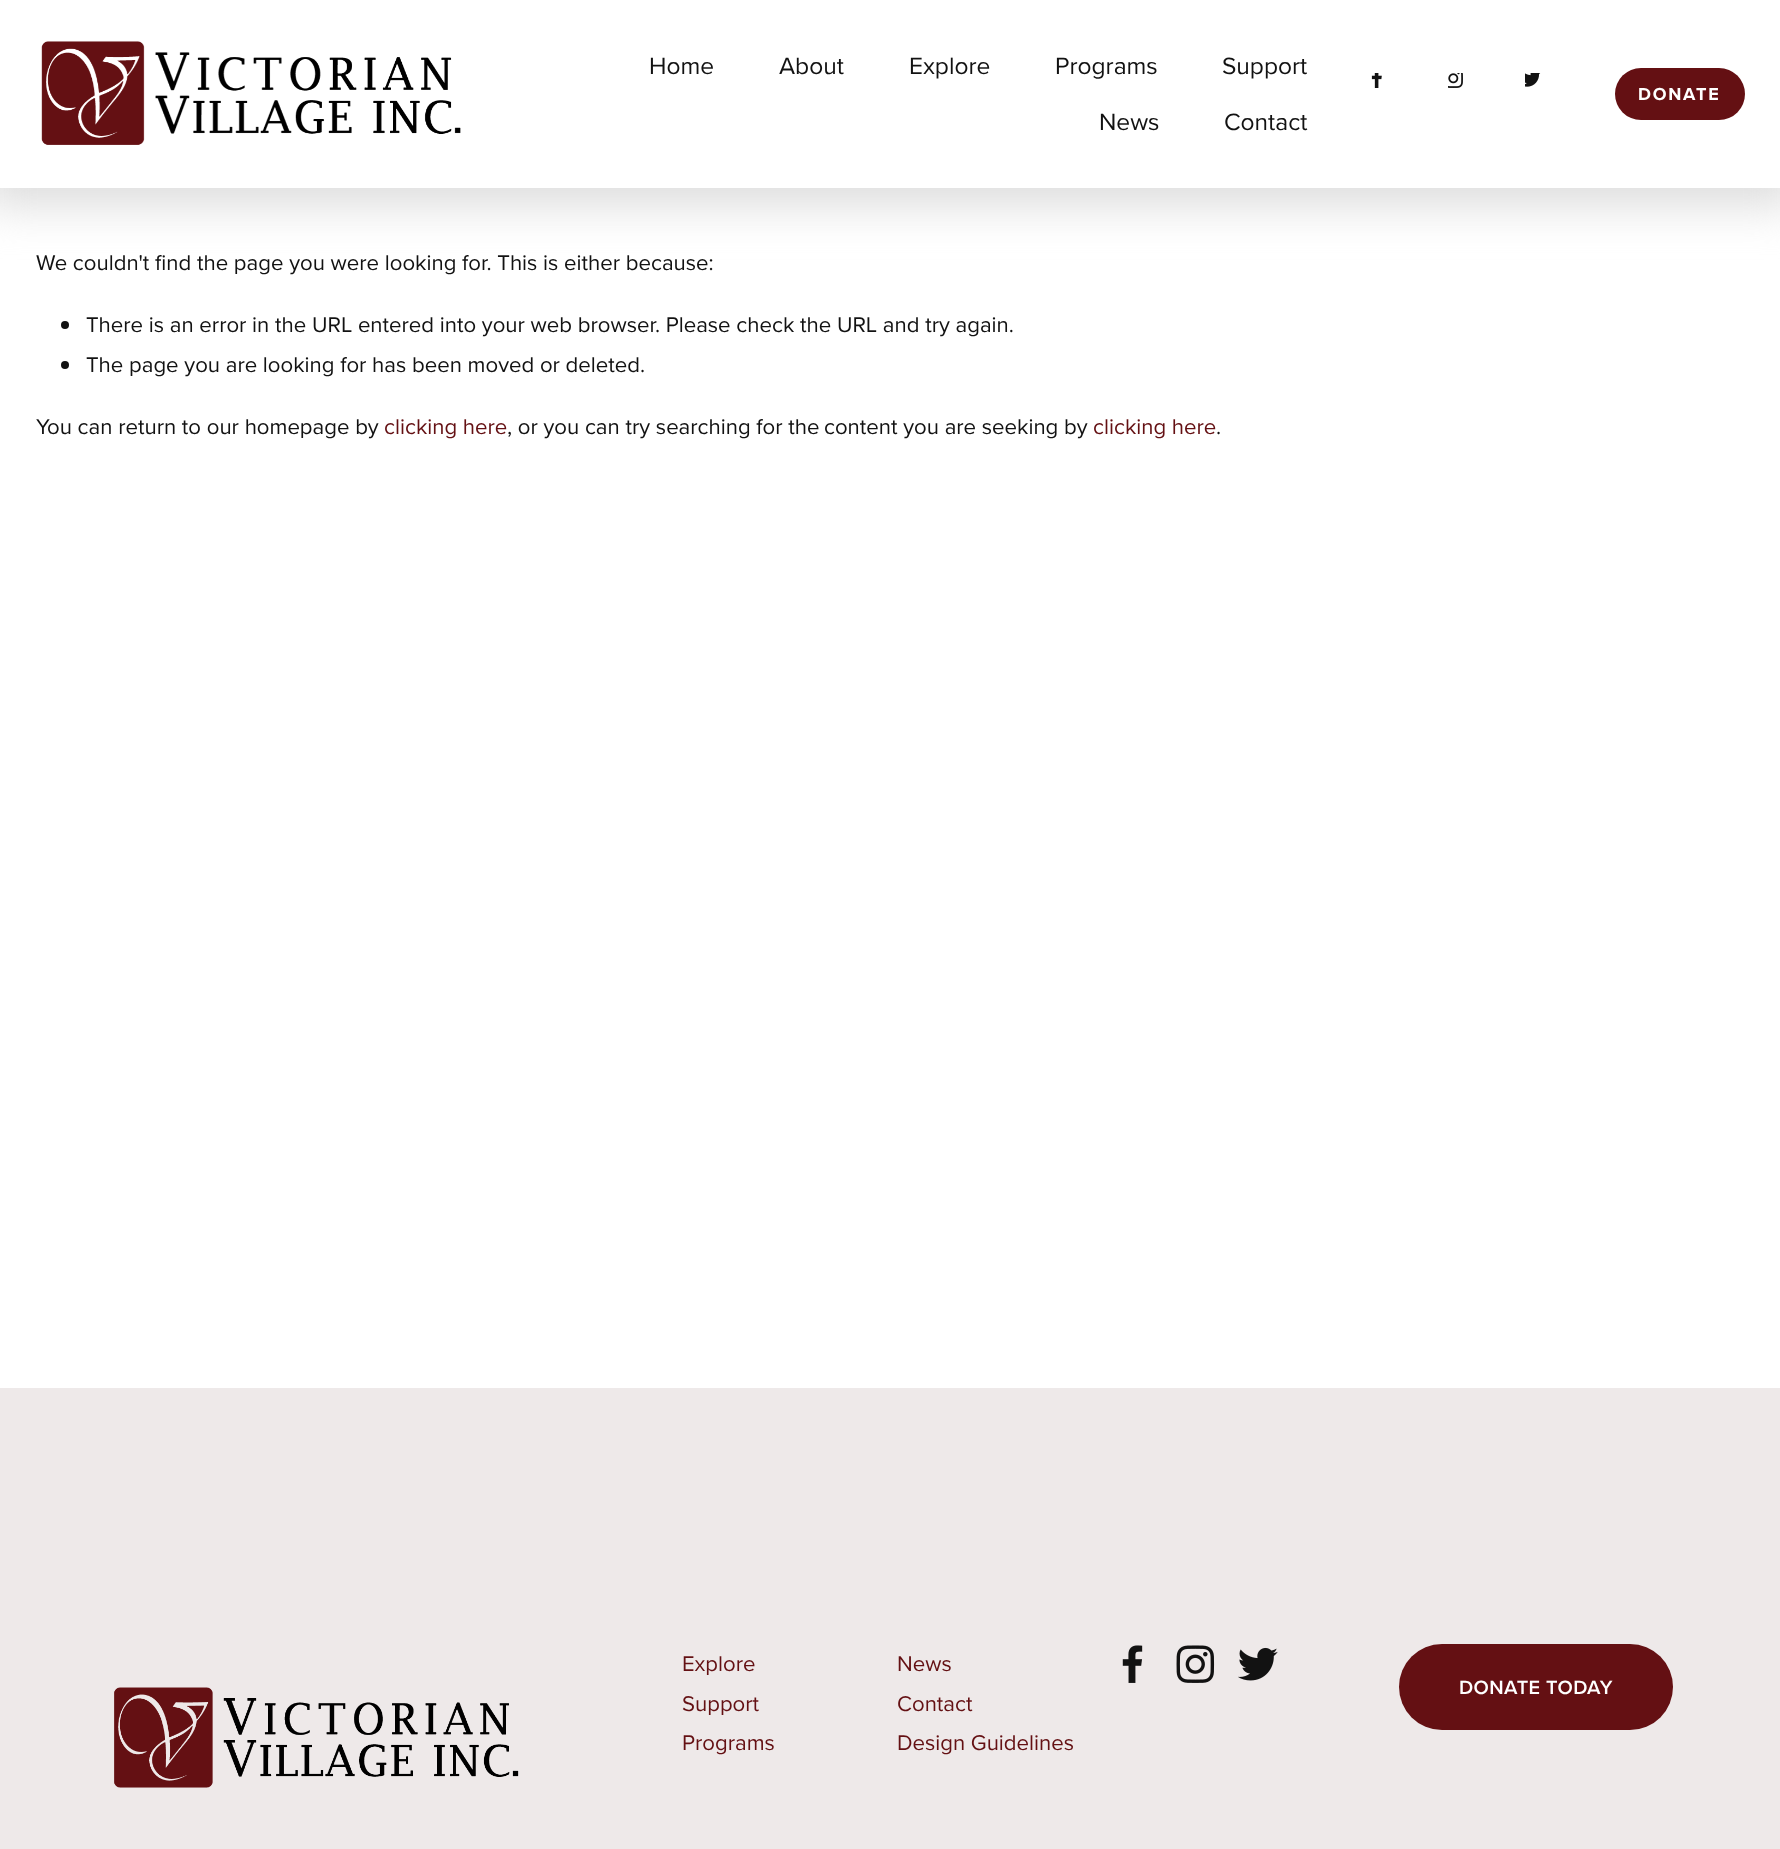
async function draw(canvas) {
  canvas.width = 1780
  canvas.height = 1849
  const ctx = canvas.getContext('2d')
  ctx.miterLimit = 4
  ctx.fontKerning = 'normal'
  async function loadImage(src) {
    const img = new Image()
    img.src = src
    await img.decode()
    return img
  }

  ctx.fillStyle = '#fff'
  ctx.fillRect(0, 0, 1780, 1849)
  ctx.fillStyle = '#dcdcdc'
  ctx.filter = 'blur(23px)'
  ctx.beginPath()
  ctx.rect(-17, -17, 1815, 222)
  ctx.fill()
  ctx.filter = 'none'
  ctx.fillStyle = '#fff'
  ctx.fillRect(0, 0, 1780, 188)
  ctx.drawImage(await loadImage('image0.png'), 41, 41, 420, 104)
  ctx.font = '24.5px Proxima Nova'
  ctx.fillStyle = '#121212'
  ctx.fillText('Home', 649, 74)
  ctx.fillText('About', 779, 74)
  ctx.fillText('Explore', 909, 74)
  ctx.fillText('Programs', 1055, 74)
  ctx.fillText('Support', 1222, 74)
  ctx.fillText('News', 1099, 130)
  ctx.fillText('Contact', 1224, 130)
  ctx.drawImage(await loadImage('image1.png'), 1371, 73, 11, 15)
  ctx.drawImage(await loadImage('image2.png'), 1448, 73, 15, 15)
  ctx.drawImage(await loadImage('image3.png'), 1525, 73, 16, 14)
  ctx.fillStyle = '#641013'
  ctx.beginPath()
  ctx.roundRect(1615, 68, 130, 52, 26)
  ctx.fill()
  ctx.letterSpacing = '1.75px'
  ctx.font = 'bold 18px Proxima Nova'
  ctx.fillStyle = '#fff'
  ctx.fillText('DONATE', 1638, 100)
  ctx.letterSpacing = '0px'
  ctx.font = '22.15px Proxima Nova'
  ctx.fillStyle = '#121212'
  ctx.fillText('We couldn\'t find the page you were looking for. This is either because:', 36, 270)
  ctx.beginPath()
  ctx.arc(65, 325, 4, 0, 2 * Math.PI)
  ctx.fill()
  ctx.fillText('There is an error in the URL entered into your web browser. Please check the URL and try again.', 86, 332)
  ctx.beginPath()
  ctx.arc(65, 365, 4, 0, 2 * Math.PI)
  ctx.fill()
  ctx.fillText('The page you are looking for has been moved or deleted.', 86, 372)
  ctx.fillText('You can return to our homepage by', 36, 434)
  ctx.fillStyle = '#641013'
  ctx.fillText('clicking here', 384, 434)
  ctx.fillStyle = '#121212'
  ctx.fillText(', or you can try searching for the', 507, 434)
  ctx.fillText('content you are seeking by', 824, 434)
  ctx.fillStyle = '#641013'
  ctx.fillText('clicking here', 1093, 434)
  ctx.fillStyle = '#121212'
  ctx.fillText('.', 1216, 434)
  ctx.fillStyle = '#eee9e9'
  ctx.fillRect(0, 1388, 1780, 461)
  ctx.drawImage(await loadImage('image4.png'), 114, 1687, 405, 101)
  ctx.fillStyle = '#641013'
  ctx.fillText('Explore', 682, 1671)
  ctx.fillText('Support', 682, 1711)
  ctx.fillText('Programs', 682, 1750)
  ctx.fillText('News', 897, 1671)
  ctx.fillText('Contact', 897, 1711)
  ctx.fillText('Design Guidelines', 897, 1750)
  ctx.drawImage(await loadImage('image5.png'), 1122, 1645, 21, 38)
  ctx.drawImage(await loadImage('image6.png'), 1176, 1645, 39, 38)
  ctx.drawImage(await loadImage('image7.png'), 1238, 1647, 40, 34)
  ctx.beginPath()
  ctx.roundRect(1399, 1644, 274, 86, 43)
  ctx.fill()
  ctx.letterSpacing = '0.4px'
  ctx.font = '600 20px Proxima Nova'
  ctx.fillStyle = '#fff'
  ctx.fillText('DONATE TODAY', 1459, 1694)
}

draw(document.querySelector('canvas'))
